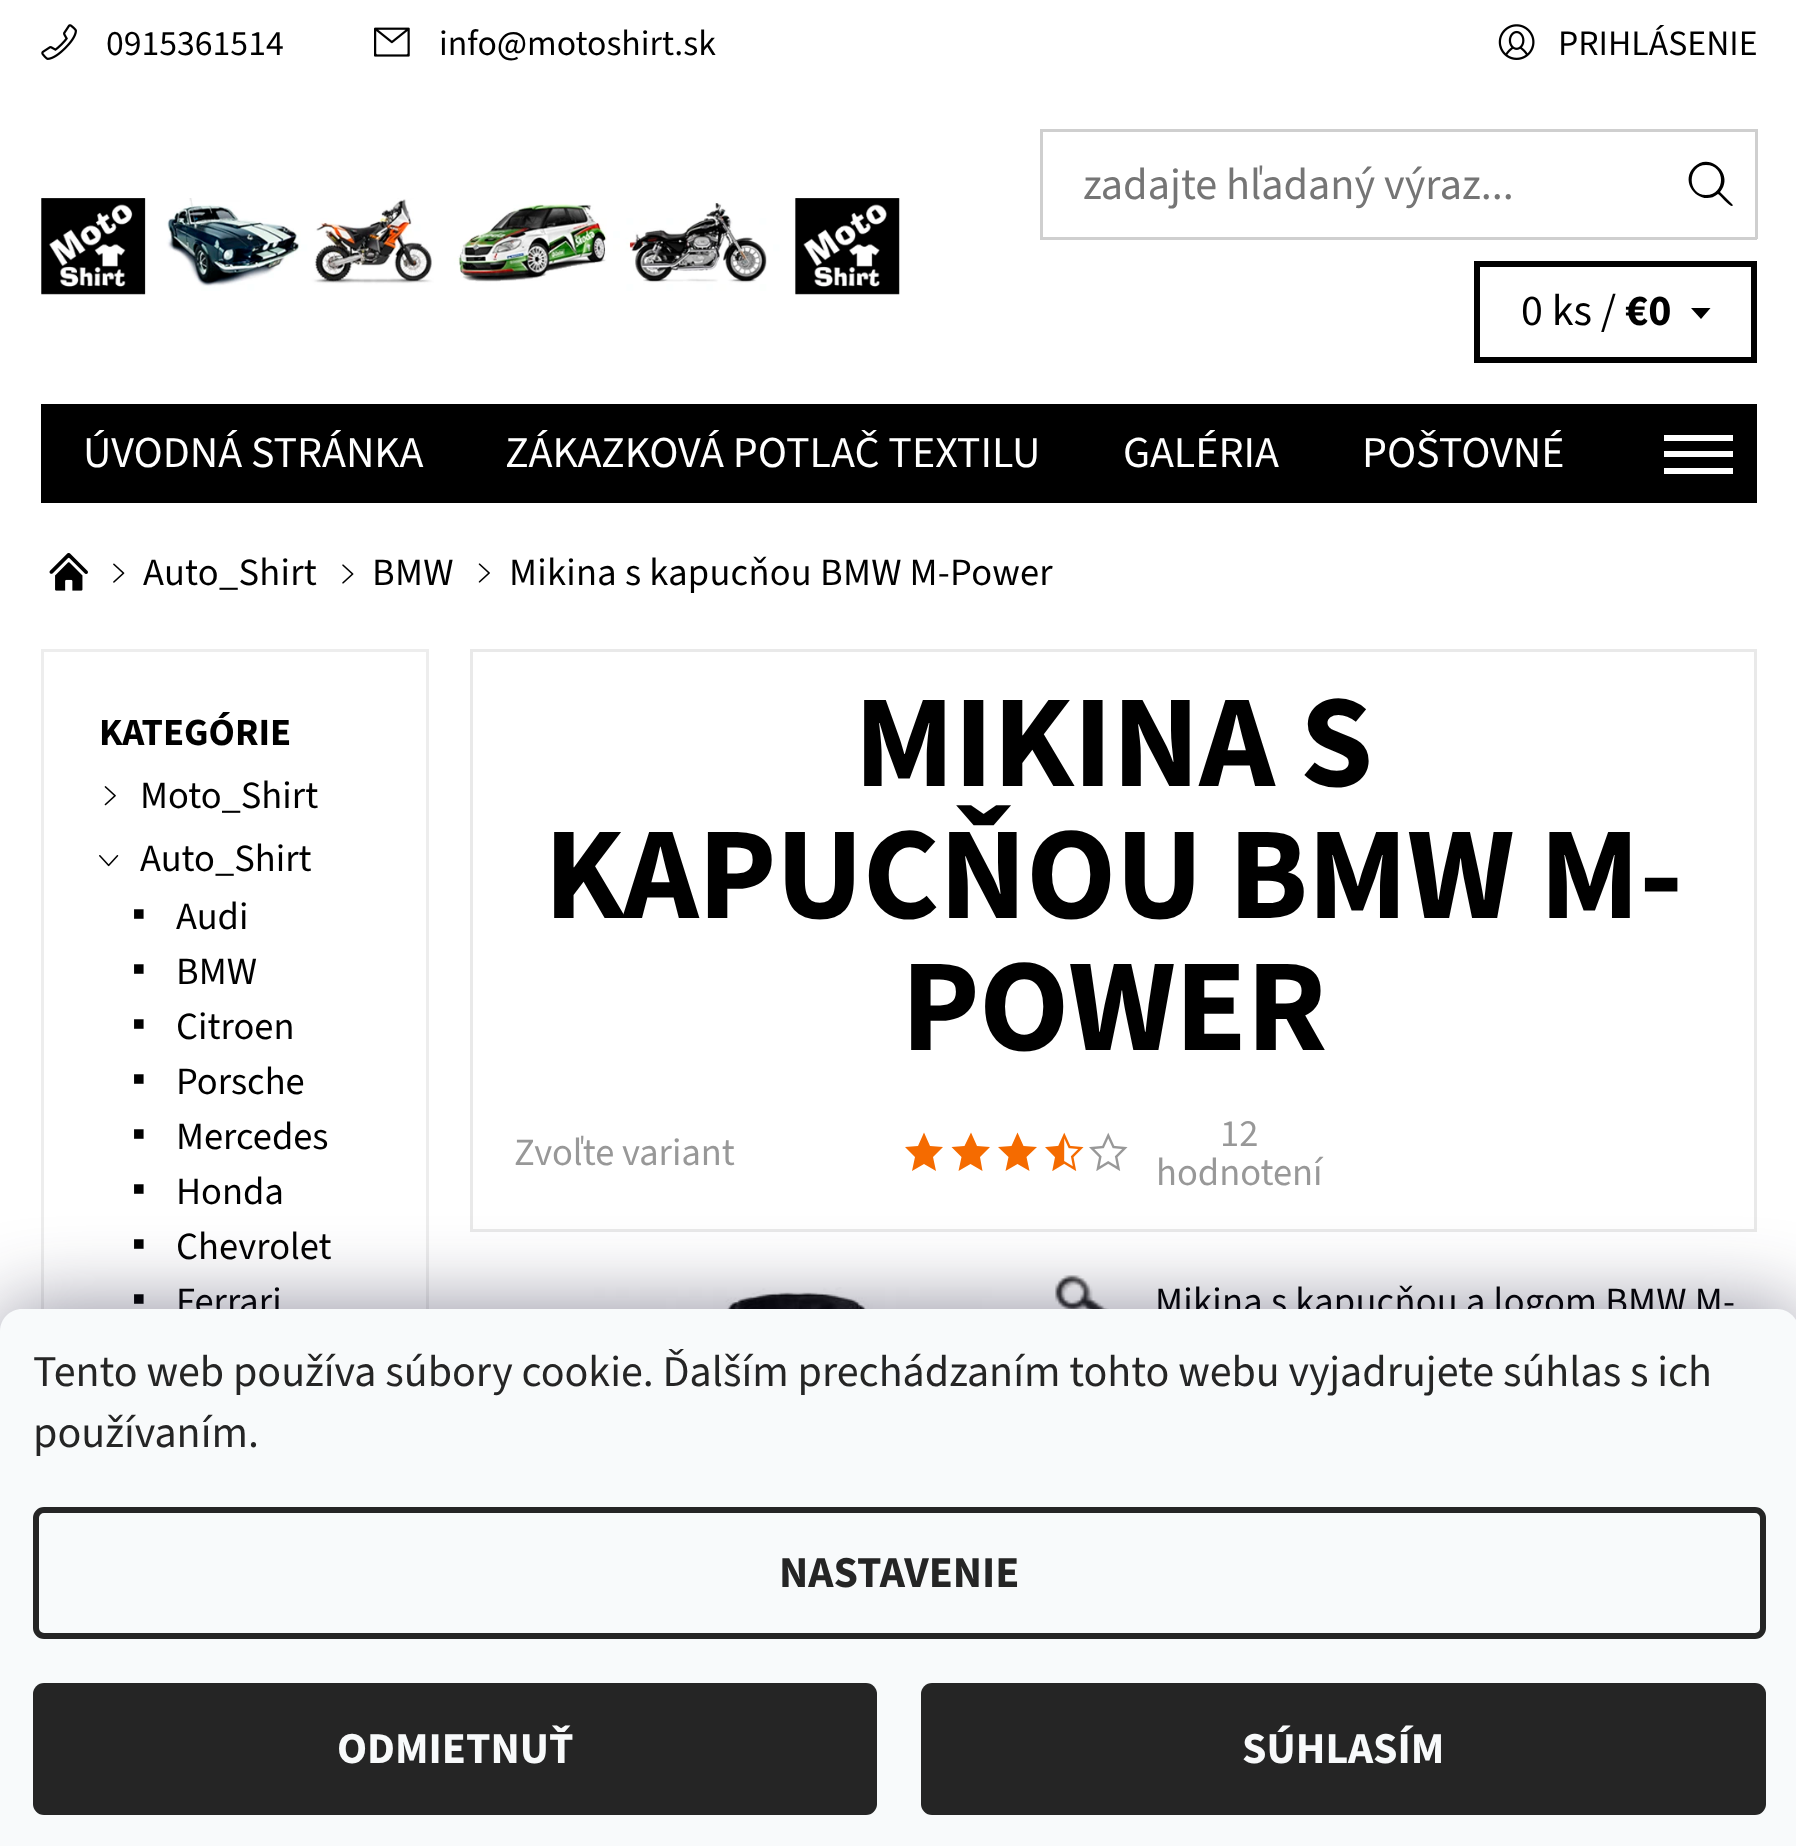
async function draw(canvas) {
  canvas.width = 1796
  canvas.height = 1846
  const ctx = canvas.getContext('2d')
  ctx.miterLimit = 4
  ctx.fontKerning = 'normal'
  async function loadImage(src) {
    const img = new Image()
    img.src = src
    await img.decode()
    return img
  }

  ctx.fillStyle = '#fff'
  ctx.fillRect(0, 0, 1796, 1846)
  ctx.drawImage(await loadImage('image0.png'), 41, 24, 36, 36)
  ctx.font = '35.75px "Source Sans 3"'
  ctx.fillStyle = '#000'
  ctx.fillText('0915361514', 106, 55)
  ctx.drawImage(await loadImage('image1.png'), 374, 27, 36, 30)
  ctx.fillText('info@motoshirt.sk', 439, 55)
  ctx.drawImage(await loadImage('image2.png'), 1498, 24, 37, 36)
  ctx.fillText('PRIHLÁSENIE', 1558, 55)
  ctx.drawImage(await loadImage('image3.png'), 41, 198, 859, 97)
  ctx.fillStyle = '#cfcfcf'
  ctx.fillRect(1040, 129, 717, 3)
  ctx.fillRect(1040, 237, 627, 3)
  ctx.fillRect(1040, 129, 3, 110)
  ctx.font = '44.25px "Source Sans 3"'
  ctx.fillStyle = '#757575'
  ctx.fillText('zadajte hľadaný výraz...', 1083, 199)
  ctx.fillStyle = '#cfcfcf'
  ctx.fillRect(1755, 129, 3, 110)
  ctx.fillRect(1667, 237, 90, 3)
  ctx.fillStyle = '#000'
  ctx.beginPath()
  ctx.moveTo(1732, 204)
  ctx.lineTo(1720, 192)
  ctx.bezierCurveTo(1735, 175, 1710, 151, 1694, 167)
  ctx.bezierCurveTo(1678, 183, 1701, 208, 1718, 194)
  ctx.bezierCurveTo(1720, 195, 1730, 207, 1732, 206)
  ctx.bezierCurveTo(1733, 206, 1733, 205, 1732, 204)
  ctx.closePath()
  ctx.moveTo(1706, 195)
  ctx.bezierCurveTo(1687, 195, 1687, 165, 1706, 165)
  ctx.bezierCurveTo(1726, 165, 1726, 195, 1706, 195)
  ctx.closePath()
  ctx.fill()
  ctx.strokeStyle = '#000'
  ctx.lineWidth = 6
  ctx.strokeRect(1477, 264, 277, 96)
  ctx.font = '44px "Source Sans 3"'
  ctx.fillText('0 ks /', 1521, 325)
  ctx.font = 'bold 44px "Source Sans 3"'
  ctx.fillText('€0', 1625, 325)
  ctx.beginPath()
  ctx.moveTo(1701, 308)
  ctx.lineTo(1710.5, 308)
  ctx.lineTo(1701, 319)
  ctx.lineTo(1691, 308)
  ctx.closePath()
  ctx.fill()
  ctx.fillRect(41, 404, 1716, 99)
  ctx.font = '44px "Source Sans 3"'
  ctx.fillStyle = '#fff'
  ctx.fillText('ÚVODNÁ STRÁNKA', 83, 467)
  ctx.fillText('ZÁKAZKOVÁ POTLAČ TEXTILU', 505, 467)
  ctx.fillText('GALÉRIA', 1123, 467)
  ctx.fillText('POŠTOVNÉ', 1362, 467)
  ctx.fillRect(1664, 435, 69, 6)
  ctx.fillRect(1664, 451, 69, 6)
  ctx.fillRect(1664, 468, 69, 6)
  ctx.drawImage(await loadImage('image4.png'), 49, 553, 39, 38)
  ctx.drawImage(await loadImage('image5.png'), 113, 563, 12, 20)
  ctx.letterSpacing = '0.25px'
  ctx.font = '38.5px "Source Sans 3"'
  ctx.fillStyle = '#000'
  ctx.fillText('Auto_Shirt', 143, 585)
  ctx.drawImage(await loadImage('image6.png'), 342, 564, 12, 20)
  ctx.fillText('BMW', 372, 585)
  ctx.drawImage(await loadImage('image7.png'), 478, 563, 12, 20)
  ctx.fillText('Mikina s kapucňou BMW M-Power', 509, 585)
  ctx.strokeStyle = '#ededed'
  ctx.lineWidth = 3
  ctx.strokeRect(42.5, 650.5, 385, 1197)
  ctx.letterSpacing = '0px'
  ctx.font = 'bold 38.5px "Source Sans 3"'
  ctx.fillText('KATEGÓRIE', 99, 745)
  ctx.drawImage(await loadImage('image8.png'), 104, 786, 12, 20)
  ctx.font = '38.5px "Source Sans 3"'
  ctx.fillText('Moto_Shirt', 140, 808)
  ctx.drawImage(await loadImage('image9.png'), 99, 855, 20, 12)
  ctx.fillText('Auto_Shirt', 140, 871)
  ctx.font = '38.5px Liberation Serif'
  ctx.fillText('▪', 132, 926)
  ctx.font = '38.5px "Source Sans 3"'
  ctx.fillText('Audi', 176, 929)
  ctx.font = '38.5px Liberation Serif'
  ctx.fillText('▪', 132, 981)
  ctx.font = '38.5px "Source Sans 3"'
  ctx.fillText('BMW', 176, 984)
  ctx.font = '38.5px Liberation Serif'
  ctx.fillText('▪', 132, 1036)
  ctx.font = '38.5px "Source Sans 3"'
  ctx.fillText('Citroen', 176, 1039)
  ctx.font = '38.5px Liberation Serif'
  ctx.fillText('▪', 132, 1091)
  ctx.font = '38.5px "Source Sans 3"'
  ctx.fillText('Porsche', 176, 1094)
  ctx.font = '38.5px Liberation Serif'
  ctx.fillText('▪', 132, 1146)
  ctx.font = '38.5px "Source Sans 3"'
  ctx.fillText('Mercedes', 176, 1149)
  ctx.font = '38.5px Liberation Serif'
  ctx.fillText('▪', 132, 1201)
  ctx.font = '38.5px "Source Sans 3"'
  ctx.fillText('Honda', 176, 1204)
  ctx.font = '38.5px Liberation Serif'
  ctx.fillText('▪', 132, 1256)
  ctx.font = '38.5px "Source Sans 3"'
  ctx.fillText('Chevrolet', 176, 1259)
  ctx.font = '38.5px Liberation Serif'
  ctx.fillText('▪', 132, 1311)
  ctx.font = '38.5px "Source Sans 3"'
  ctx.fillText('Ferrari', 176, 1314)
  ctx.strokeStyle = '#e9e9e9'
  ctx.strokeRect(471.5, 650.5, 1284, 580)
  ctx.letterSpacing = '-0.75px'
  ctx.font = 'bold 132px "Source Sans 3"'
  ctx.fillText('MIKINA S', 854, 786)
  ctx.fillText('KAPUCŇOU BMW M-', 544, 918)
  ctx.fillText('POWER', 901, 1050)
  ctx.letterSpacing = '0px'
  ctx.font = '38.5px "Source Sans 3"'
  ctx.fillStyle = '#989898'
  ctx.fillText('Zvoľte variant', 514, 1165)
  ctx.fillStyle = '#f56b00'
  ctx.beginPath()
  ctx.moveTo(924, 1132.5)
  ctx.lineTo(918, 1146)
  ctx.lineTo(905, 1147)
  ctx.lineTo(915, 1157)
  ctx.lineTo(912, 1171)
  ctx.lineTo(924, 1164)
  ctx.lineTo(936, 1171)
  ctx.lineTo(933, 1157)
  ctx.lineTo(943, 1147)
  ctx.lineTo(930, 1146)
  ctx.closePath()
  ctx.fill()
  ctx.beginPath()
  ctx.moveTo(971, 1132.5)
  ctx.lineTo(964.5, 1146)
  ctx.lineTo(951.5, 1147)
  ctx.lineTo(961.5, 1157)
  ctx.lineTo(958.5, 1171)
  ctx.lineTo(970.5, 1164)
  ctx.lineTo(982.5, 1171)
  ctx.lineTo(980, 1157)
  ctx.lineTo(990, 1147)
  ctx.lineTo(977, 1146)
  ctx.closePath()
  ctx.fill()
  ctx.beginPath()
  ctx.moveTo(1017.5, 1132.5)
  ctx.lineTo(1011.5, 1146)
  ctx.lineTo(998, 1147)
  ctx.lineTo(1008.5, 1157)
  ctx.lineTo(1005.5, 1171)
  ctx.lineTo(1017.5, 1164)
  ctx.lineTo(1029.5, 1171)
  ctx.lineTo(1026.5, 1157)
  ctx.lineTo(1037, 1147)
  ctx.lineTo(1023.5, 1146)
  ctx.closePath()
  ctx.fill()
  ctx.drawImage(await loadImage('image10.png'), 1045, 1132, 39, 39)
  ctx.drawImage(await loadImage('image11.png'), 1089, 1132, 39, 39)
  ctx.fillStyle = '#989898'
  ctx.fillText('12', 1220, 1146)
  ctx.fillText('hodnotení', 1156, 1185)
  ctx.drawImage(await loadImage('image12.png'), 594, 1287, 398, 22)
  ctx.drawImage(await loadImage('image13.png'), 1055, 1275, 54, 34)
  ctx.letterSpacing = '0.25px'
  ctx.fillStyle = '#000'
  ctx.fillText('Mikina s kapucňou a logom BMW M-', 1155, 1314)
  ctx.fillStyle = '#1b193980'
  ctx.filter = 'blur(41px)'
  ctx.beginPath()
  ctx.roundRect(0, 1309, 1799, 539, 22)
  ctx.fill()
  ctx.filter = 'none'
  ctx.fillStyle = '#f8fafb'
  ctx.beginPath()
  ctx.moveTo(22, 1309)
  ctx.lineTo(1777, 1309)
  ctx.bezierCurveTo(1789, 1309, 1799, 1319, 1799, 1331)
  ctx.lineTo(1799, 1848)
  ctx.lineTo(0, 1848)
  ctx.lineTo(0, 1331)
  ctx.bezierCurveTo(0, 1319, 10, 1309, 22, 1309)
  ctx.closePath()
  ctx.fill()
  ctx.letterSpacing = '0px'
  ctx.font = '44px "Source Sans 3"'
  ctx.fillStyle = '#252525'
  ctx.fillText('Tento web používa súbory cookie. Ďalším prechádzaním tohto webu vyjadrujete súhlas s ich', 33, 1386)
  ctx.fillText('používaním.', 33, 1447)
  ctx.beginPath()
  ctx.roundRect(36, 1510, 1727, 126, 8)
  ctx.strokeStyle = '#252525'
  ctx.lineWidth = 6
  ctx.stroke()
  ctx.font = 'bold 44px "Source Sans 3"'
  ctx.fillText('NASTAVENIE', 779, 1587)
  ctx.beginPath()
  ctx.roundRect(33, 1683, 844, 132, 11)
  ctx.fill()
  ctx.fillStyle = '#f8fafb'
  ctx.fillText('ODMIETNUŤ', 337, 1763)
  ctx.fillStyle = '#252525'
  ctx.beginPath()
  ctx.roundRect(921, 1683, 845, 132, 11)
  ctx.fill()
  ctx.fillStyle = '#f8fafb'
  ctx.fillText('SÚHLASÍM', 1242, 1763)
}

draw(document.querySelector('canvas'))
